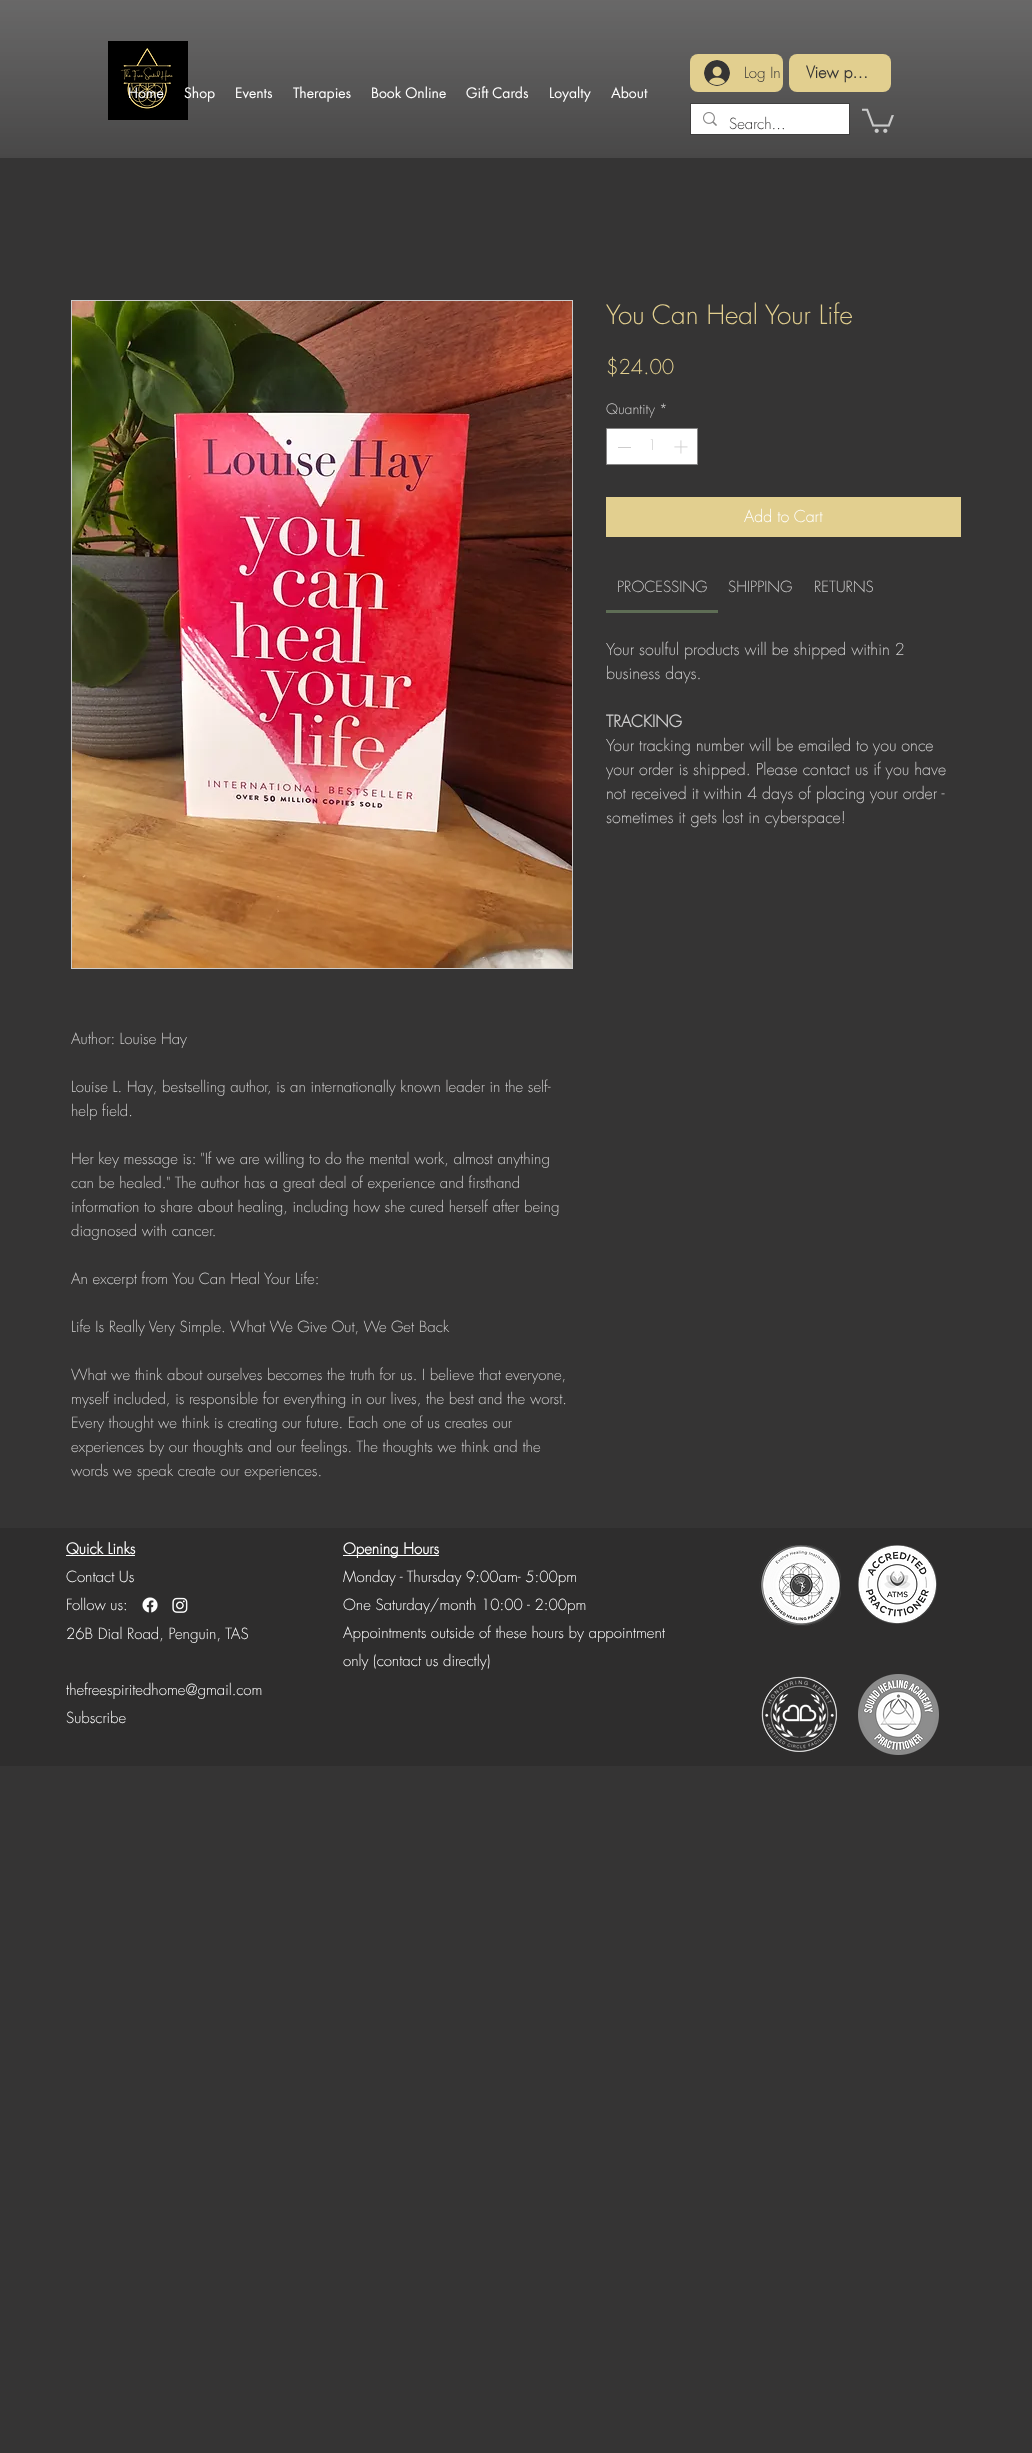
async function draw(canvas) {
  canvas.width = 1032
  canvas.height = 2453
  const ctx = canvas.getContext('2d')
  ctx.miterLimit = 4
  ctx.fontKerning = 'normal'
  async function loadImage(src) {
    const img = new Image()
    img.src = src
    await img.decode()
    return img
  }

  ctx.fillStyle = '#353434'
  ctx.fillRect(0, 0, 1032, 2453)
  ctx.drawImage(await loadImage('image0.png'), 0, 0, 1032, 158)
  ctx.drawImage(await loadImage('image1.png'), 108, 41, 80, 79)
  ctx.font = '14px futura'
  ctx.fillStyle = '#fff'
  ctx.fillText('Home', 128, 98)
  ctx.fillText('Shop', 184, 98)
  ctx.fillText('Events', 235, 98)
  ctx.fillText('Therapies', 293, 98)
  ctx.fillText('Book Online', 371, 98)
  ctx.fillText('Gift Cards', 466, 98)
  ctx.fillText('Loyalty', 549, 98)
  ctx.fillText('About', 611, 98)
  ctx.fillStyle = '#e2cf8f'
  ctx.beginPath()
  ctx.roundRect(690, 54, 93, 38, 8)
  ctx.fill()
  ctx.drawImage(await loadImage('image2.png'), 704, 60, 26, 26)
  ctx.font = '300 15px futura'
  ctx.fillStyle = '#353434'
  ctx.fillText('Log In', 744, 78)
  ctx.fillStyle = '#e2cf8f'
  ctx.beginPath()
  ctx.roundRect(789, 54, 102, 38, 8)
  ctx.fill()
  ctx.font = 'bold 16px futura'
  ctx.fillStyle = '#353434'
  ctx.fillText('View p…', 806, 78)
  ctx.strokeStyle = '#35343499'
  ctx.strokeRect(690.5, 103.5, 159, 31)
  ctx.fillStyle = '#fff'
  ctx.fillRect(691, 104, 158, 30)
  ctx.drawImage(await loadImage('image3.png'), 703, 112, 14, 14)
  ctx.font = '300 15px futura'
  ctx.fillStyle = '#353434'
  ctx.fillText('Search...', 729, 129)
  ctx.drawImage(await loadImage('image4.png'), 862, 108, 32, 25)
  ctx.font = '300 26px futura'
  ctx.fillStyle = '#e2cf8f'
  ctx.fillText('You Can Heal Your Life', 606, 324)
  ctx.font = '300 20px futura'
  ctx.fillText('$24.00', 606, 374)
  ctx.font = '300 14px futura'
  ctx.fillStyle = '#cdcccc'
  ctx.fillText('Quantity', 606, 414)
  ctx.fillText('*', 659, 414)
  ctx.fillStyle = '#fff'
  ctx.beginPath()
  ctx.rect(606.5, 428.5, 91, 36)
  ctx.fill()
  ctx.strokeStyle = '#868585'
  ctx.stroke()
  ctx.fillStyle = '#cdcccc'
  ctx.fillRect(618, 447, 13, 1)
  ctx.fillText('1', 648, 450)
  ctx.drawImage(await loadImage('image5.png'), 674, 440, 14, 14)
  ctx.fillStyle = '#e2cf8f'
  ctx.fillRect(606, 497, 355, 40)
  ctx.font = '300 16px futura'
  ctx.fillStyle = '#fff'
  ctx.fillText('Add to Cart', 744, 522)
  ctx.fillStyle = '#5e6d55'
  ctx.fillRect(606, 610, 112, 3)
  ctx.font = '300 15px futura'
  ctx.fillStyle = '#cdcccc'
  ctx.fillText('PROCESSING', 617, 592)
  ctx.fillText('SHIPPING', 728, 592)
  ctx.fillText('RETURNS', 814, 592)
  ctx.font = '300 16px futura'
  ctx.fillText('Your soulful products will be shipped within 2', 606, 655)
  ctx.fillText('business days.', 606, 679)
  ctx.font = 'bold 16px futura'
  ctx.fillText('TRACKING', 606, 727)
  ctx.font = '300 16px futura'
  ctx.fillText('Your tracking number will be emailed to you once', 606, 751)
  ctx.fillText('your order is shipped. Please contact us if you have', 606, 775)
  ctx.fillText('not received it within 4 days of placing your order -', 606, 799)
  ctx.fillText('sometimes it gets lost in cyberspace!', 606, 823)
  ctx.strokeStyle = '#cdcccc'
  ctx.strokeRect(71.5, 300.5, 501, 668)
  ctx.drawImage(await loadImage('image6.png'), 72, 301, 500, 667)
  ctx.font = '300 15px futura'
  ctx.fillText('Author: Louise Hay', 71, 1044)
  ctx.fillText('Louise L. Hay, bestselling author, is an internationally known leader in the self-', 71, 1092)
  ctx.fillText('help field.', 71, 1116)
  ctx.fillText('Her key message is: "If we are willing to do the mental work, almost anything', 71, 1164)
  ctx.fillText('can be healed." The author has a great deal of experience and firsthand', 71, 1188)
  ctx.fillText('information to share about healing, including how she cured herself after being', 71, 1212)
  ctx.fillText('diagnosed with cancer.', 71, 1236)
  ctx.fillText('An excerpt from You Can Heal Your Life:', 71, 1284)
  ctx.fillText('Life Is Really Very Simple. What We Give Out, We Get Back', 71, 1332)
  ctx.fillText('What we think about ourselves becomes the truth for us. I believe that everyone,', 71, 1380)
  ctx.fillText('myself included, is responsible for everything in our lives, the best and the worst.', 71, 1404)
  ctx.fillText('Every thought we think is creating our future. Each one of us creates our', 71, 1428)
  ctx.fillText('experiences by our thoughts and our feelings. The thoughts we think and the', 71, 1452)
  ctx.fillText('words we speak create our experiences.', 71, 1476)
  ctx.fillStyle = '#2e2d2d'
  ctx.fillRect(0, 1528, 1032, 238)
  ctx.font = 'bold 15px futura'
  ctx.fillStyle = '#fff'
  ctx.fillText('Quick Links', 66, 1554)
  ctx.fillRect(66, 1555, 69, 1)
  ctx.fillRect(343, 1555, 96, 1)
  ctx.fillText('Opening Hours', 343, 1554)
  ctx.font = '300 15px futura'
  ctx.fillText('Monday - Thursday 9:00am- 5:00pm', 343, 1582)
  ctx.fillText('One Saturday/month 10:00 - 2:00pm', 343, 1610)
  ctx.fillText('Appointments outside of these hours by appointment', 343, 1638)
  ctx.fillText('only (contact us directly)', 343, 1666)
  ctx.drawImage(await loadImage('image7.png'), 759, 1545, 82, 81)
  ctx.drawImage(await loadImage('image8.png'), 858, 1545, 79, 79)
  ctx.fillText('Contact Us', 66, 1582)
  ctx.fillText('Follow us:', 66, 1610)
  ctx.drawImage(await loadImage('image9.png'), 142, 1597, 16, 16)
  ctx.drawImage(await loadImage('image10.png'), 172, 1597, 16, 16)
  ctx.fillText('26B Dial Road, Penguin, TAS', 66, 1639)
  ctx.fillText('thefreespiritedhome@gmail.com', 66, 1695)
  ctx.drawImage(await loadImage('image11.png'), 761, 1676, 76, 76)
  ctx.drawImage(await loadImage('image12.png'), 858, 1674, 81, 81)
  ctx.fillText('Subscribe', 66, 1723)
}

draw(document.querySelector('canvas'))
